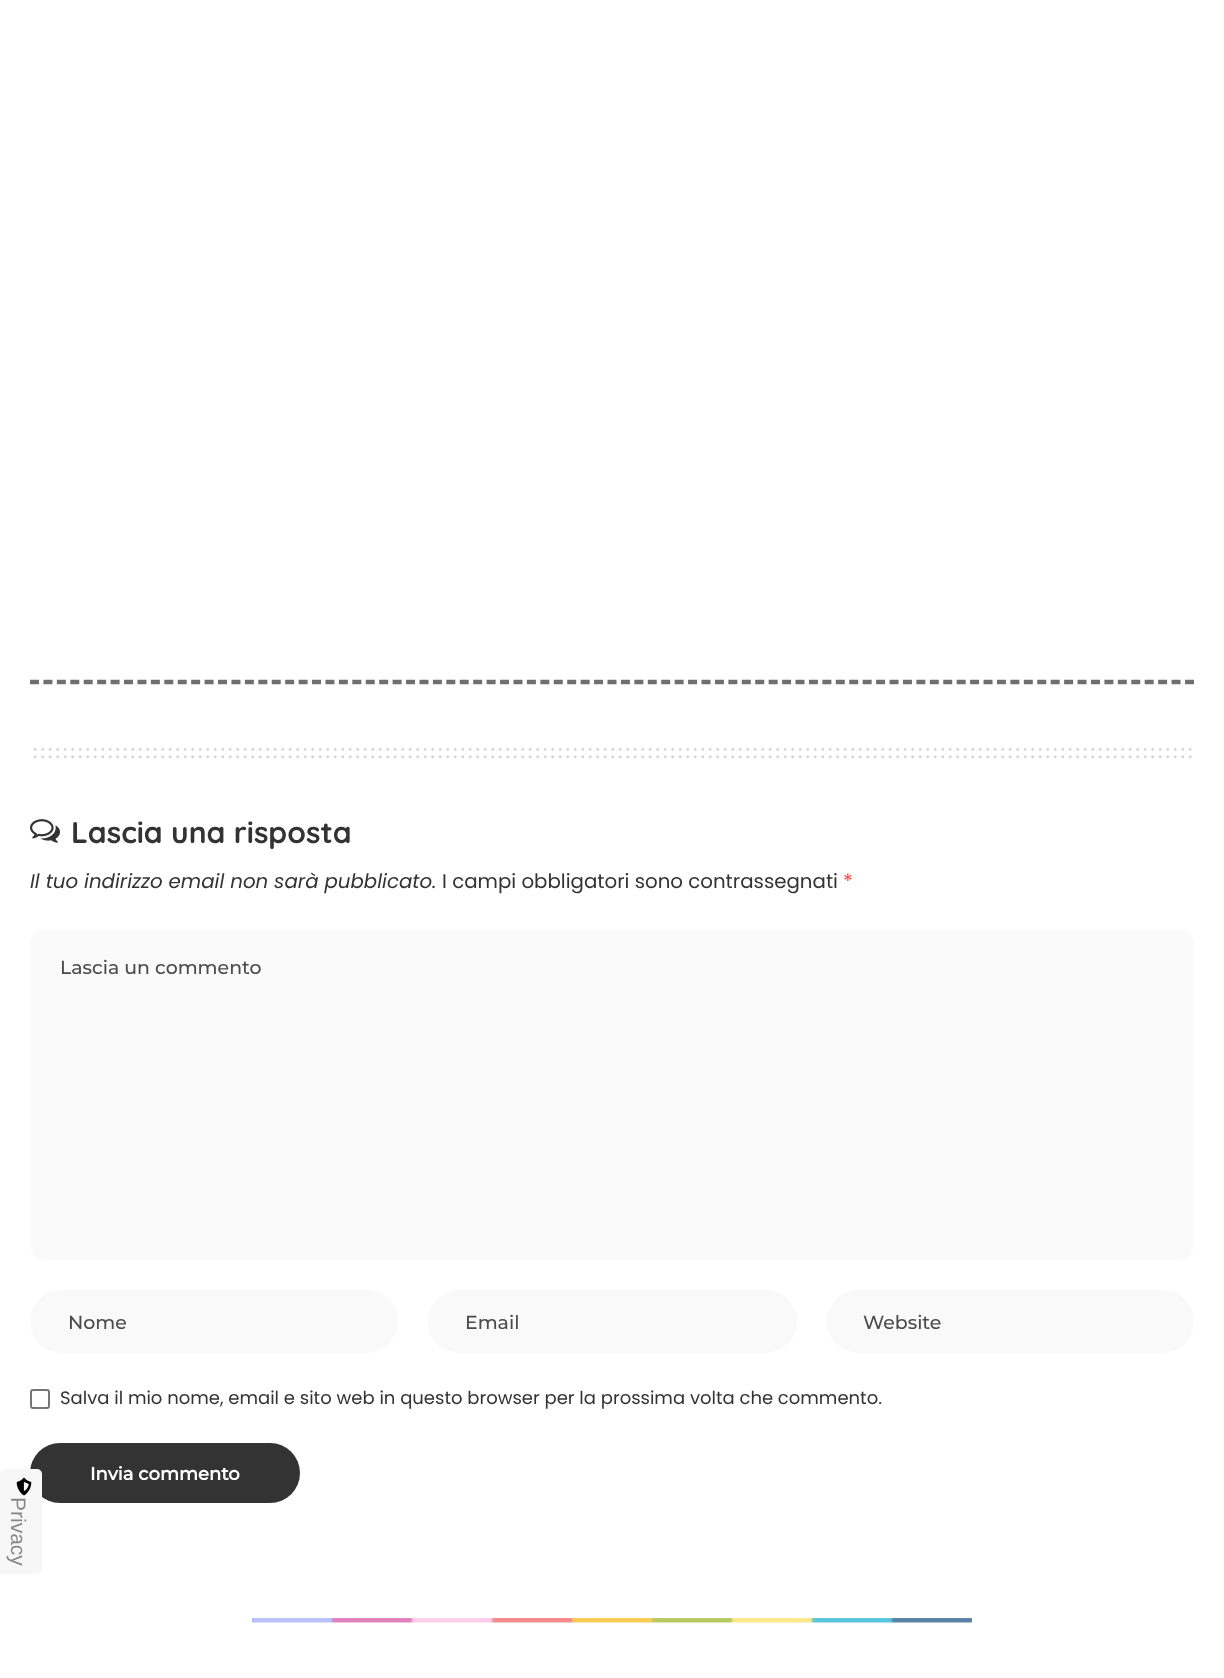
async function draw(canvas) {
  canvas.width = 1224
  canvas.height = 1678
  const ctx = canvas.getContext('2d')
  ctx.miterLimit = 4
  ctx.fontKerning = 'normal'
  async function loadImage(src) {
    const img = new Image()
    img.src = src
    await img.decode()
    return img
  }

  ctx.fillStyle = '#fff'
  ctx.fillRect(0, 0, 1224, 1678)
  ctx.beginPath()
  ctx.moveTo(30, 682)
  ctx.lineTo(1194, 682)
  ctx.strokeStyle = '#6f6f6f'
  ctx.lineWidth = 4.5
  ctx.setLineDash([9, 4.43])
  ctx.stroke()
  ctx.beginPath()
  ctx.moveTo(35.2, 749.2)
  ctx.lineTo(1190.6, 749.2)
  ctx.strokeStyle = '#d6d6d6'
  ctx.lineWidth = 3
  ctx.lineCap = 'round'
  ctx.setLineDash([0, 7.5])
  ctx.stroke()
  ctx.beginPath()
  ctx.moveTo(35.2, 756.8)
  ctx.lineTo(1190.6, 756.8)
  ctx.stroke()
  ctx.drawImage(await loadImage('image0.png'), 30, 819, 30, 24)
  ctx.font = 'bold 30px Quicksand'
  ctx.fillStyle = '#333'
  ctx.fillText('Lascia una risposta', 71, 843)
  ctx.font = 'italic 19.8px Poppins'
  ctx.fillText('Il tuo indirizzo email non sarà pubblicato.', 30, 888)
  ctx.font = '19.8px Poppins'
  ctx.fillText('I campi obbligatori sono contrassegnati', 442, 888)
  ctx.fillStyle = '#ff4545'
  ctx.fillText('*', 843, 888)
  ctx.fillStyle = '#fafafa'
  ctx.beginPath()
  ctx.roundRect(30, 930, 1164, 330, 15)
  ctx.fill()
  ctx.font = '100 18.9px Montserrat'
  ctx.fillStyle = '#4b4b4b'
  ctx.fillText('Lascia un commento', 60, 974)
  ctx.fillStyle = '#f9f9f9'
  ctx.beginPath()
  ctx.roundRect(30, 1290, 368, 63, 31.5)
  ctx.fill()
  ctx.fillStyle = '#4b4b4b'
  ctx.fillText('Nome', 68, 1329)
  ctx.fillStyle = '#f9f9f9'
  ctx.beginPath()
  ctx.roundRect(428, 1290, 369, 63, 31.5)
  ctx.fill()
  ctx.fillStyle = '#4b4b4b'
  ctx.fillText('Email', 465, 1329)
  ctx.fillStyle = '#f9f9f9'
  ctx.beginPath()
  ctx.roundRect(827, 1290, 367, 63, 31.5)
  ctx.fill()
  ctx.fillStyle = '#4b4b4b'
  ctx.fillText('Website', 863, 1329)
  ctx.beginPath()
  ctx.roundRect(31, 1390, 18, 18, 2)
  ctx.strokeStyle = '#767676'
  ctx.lineWidth = 2
  ctx.setLineDash([])
  ctx.stroke()
  ctx.font = '18px Poppins'
  ctx.fillStyle = '#333'
  ctx.fillText('Salva il mio nome, email e sito web in questo browser per la prossima volta che commento.', 60, 1404)
  ctx.beginPath()
  ctx.roundRect(30, 1443, 270, 60, 30)
  ctx.fill()
  ctx.font = 'bold 18px Montserrat'
  ctx.fillStyle = '#fff'
  ctx.fillText('Invia commento', 90, 1480)
  ctx.drawImage(await loadImage('image1.png'), 252, 1618, 720, 5)
  ctx.fillStyle = '#f7f7f7'
  ctx.beginPath()
  ctx.roundRect(0, 1469, 42, 105, [5, 5, 5, 0])
  ctx.fill()
  ctx.drawImage(await loadImage('image2.png'), 16, 1477, 16, 19)
  ctx.font = '21px Liberation Sans'
  ctx.fillStyle = '#888'
  ctx.save()
  ctx.translate(11, 1497)
  ctx.rotate(90 * Math.PI / 180)
  ctx.fillText('Privacy', 0, 0)
  ctx.restore()
}

draw(document.querySelector('canvas'))
